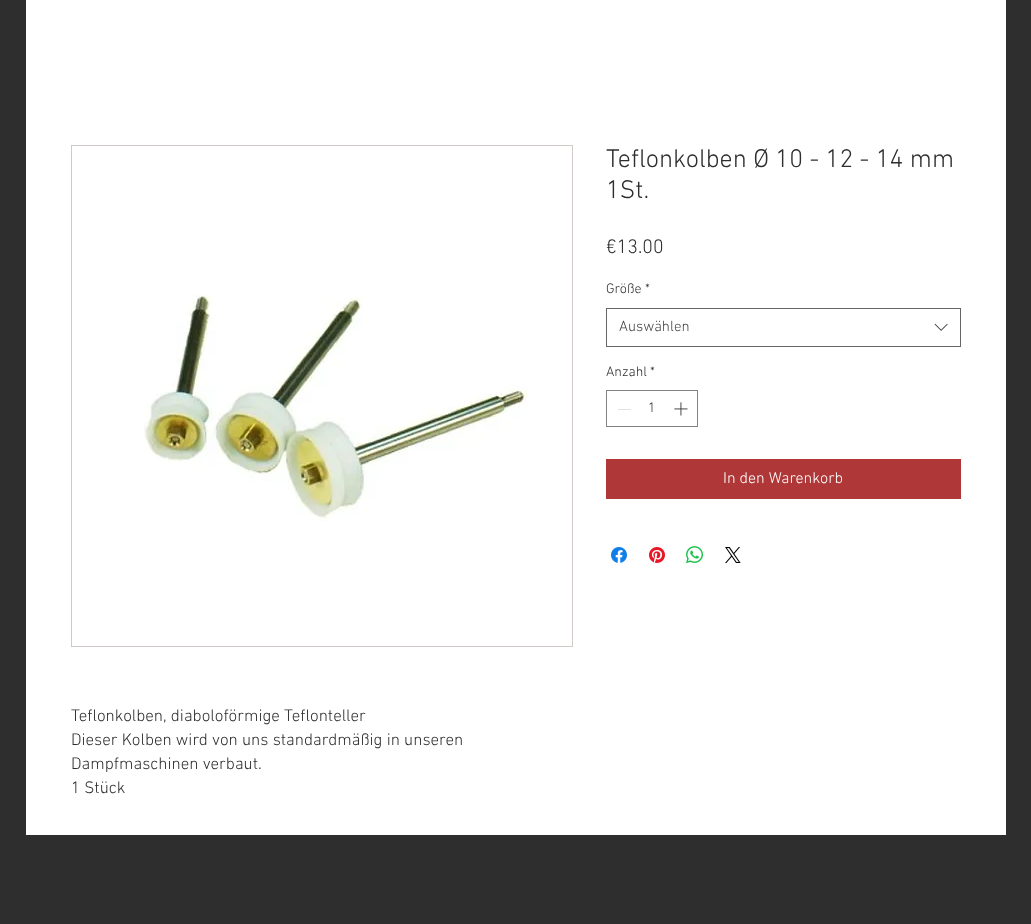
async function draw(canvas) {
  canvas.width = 1031
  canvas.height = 924
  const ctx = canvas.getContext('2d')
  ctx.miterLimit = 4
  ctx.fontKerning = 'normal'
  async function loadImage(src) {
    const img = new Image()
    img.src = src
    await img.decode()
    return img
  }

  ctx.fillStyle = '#2f2e2e'
  ctx.fillRect(0, 0, 1031, 924)
  ctx.fillStyle = '#fff'
  ctx.fillRect(26, 0, 980, 835)
  ctx.font = '300 26px "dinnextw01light"'
  ctx.fillStyle = '#2f2e2e'
  ctx.fillText('Teflonkolben Ø 10 - 12 - 14 mm', 606, 167)
  ctx.fillText('1St.', 606, 198)
  ctx.font = '300 20px "dinnextw01light"'
  ctx.fillText('€13.00', 606, 253)
  ctx.font = '300 14px "dinnextw01light"'
  ctx.fillText('Größe', 606, 293)
  ctx.fillText('*', 645, 293)
  ctx.strokeStyle = '#666'
  ctx.strokeRect(606.5, 308.5, 354, 38)
  ctx.font = '300 15px "dinnextw01light"'
  ctx.fillStyle = '#444'
  ctx.fillText('Auswählen', 619, 331)
  ctx.drawImage(await loadImage('image0.png'), 934, 323, 14, 8)
  ctx.font = '300 14px "dinnextw01light"'
  ctx.fillStyle = '#2f2e2e'
  ctx.fillText('Anzahl', 606, 376)
  ctx.fillText('*', 650, 376)
  ctx.strokeStyle = '#828282'
  ctx.strokeRect(606.5, 390.5, 91, 36)
  ctx.fillStyle = '#e3e3e3'
  ctx.fillRect(618, 409, 13, 1)
  ctx.fillStyle = '#2f2e2e'
  ctx.fillText('1', 648, 412)
  ctx.drawImage(await loadImage('image1.png'), 674, 402, 14, 14)
  ctx.fillStyle = '#b03737'
  ctx.fillRect(606, 459, 355, 40)
  ctx.font = '300 16px "dinnextw01light"'
  ctx.fillStyle = '#fff'
  ctx.fillText('In den Warenkorb', 723, 483)
  ctx.drawImage(await loadImage('image2.png'), 611, 547, 16, 16)
  ctx.drawImage(await loadImage('image3.png'), 649, 547, 16, 16)
  ctx.drawImage(await loadImage('image4.png'), 686, 546, 17, 17)
  ctx.drawImage(await loadImage('image5.png'), 725, 547, 16, 16)
  ctx.strokeStyle = '#d1cac9'
  ctx.strokeRect(71.5, 145.5, 501, 501)
  ctx.drawImage(await loadImage('image6.png'), 144, 294, 385, 228)
  ctx.font = '300 17px "dinnextw01light"'
  ctx.fillStyle = '#2f2e2e'
  ctx.fillText('Teflonkolben, diaboloförmige Teflonteller', 71, 721)
  ctx.fillText('Dieser Kolben wird von uns standardmäßig in unseren', 71, 745)
  ctx.fillText('Dampfmaschinen verbaut.', 71, 769)
  ctx.fillText('1 Stück', 71, 793)
}

draw(document.querySelector('canvas'))
